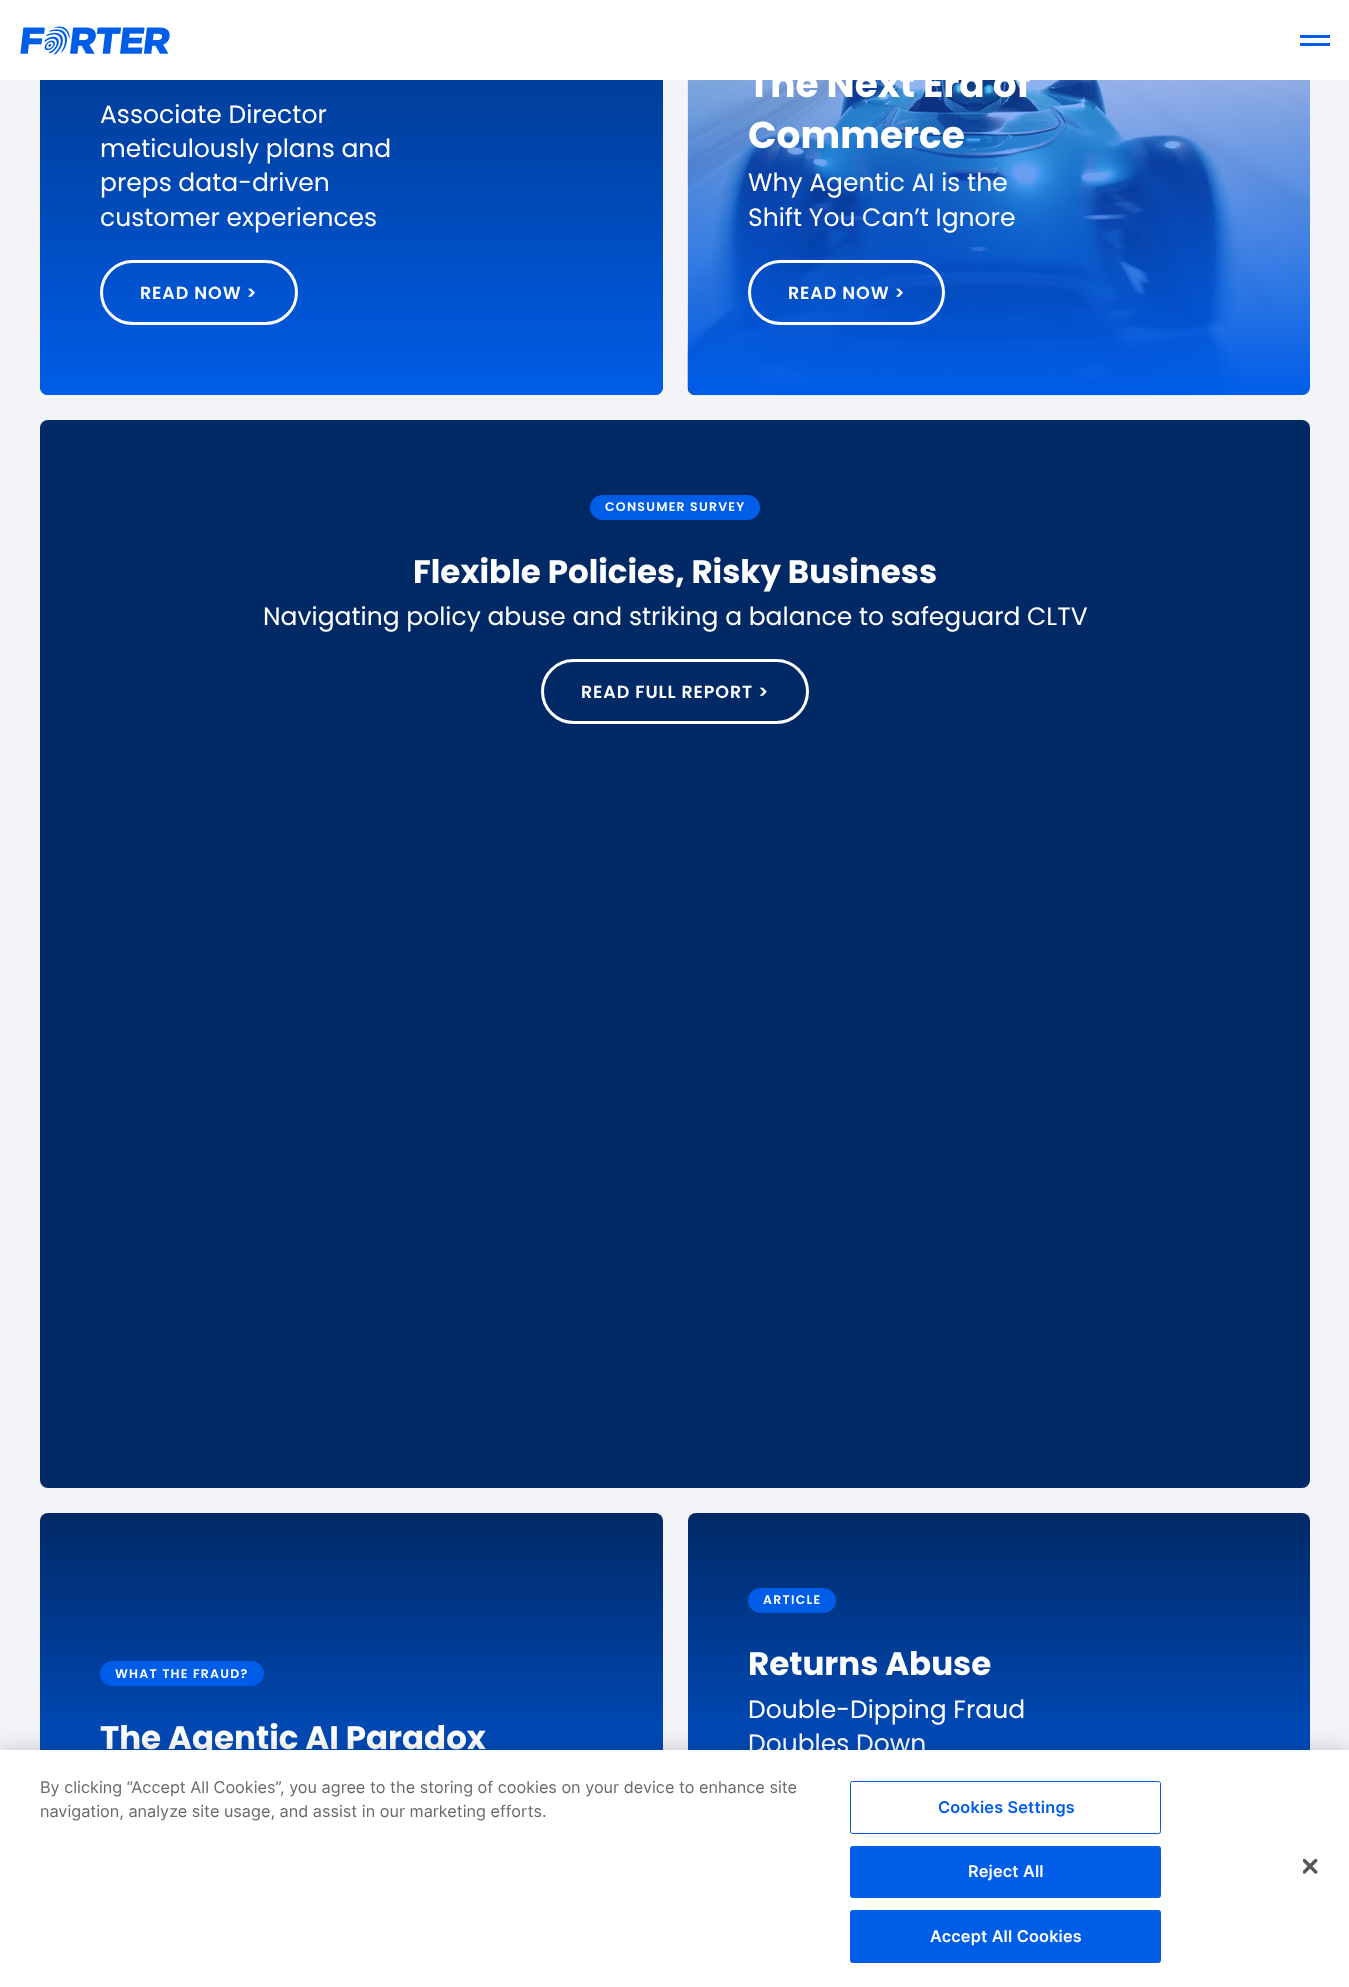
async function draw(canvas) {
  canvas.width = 1349
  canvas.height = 1987
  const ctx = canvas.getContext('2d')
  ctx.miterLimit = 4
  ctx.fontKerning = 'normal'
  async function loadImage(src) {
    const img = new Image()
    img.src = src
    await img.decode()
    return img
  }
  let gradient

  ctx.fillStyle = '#f2f4f8'
  ctx.fillRect(0, 0, 1349, 1987)
  ctx.fillStyle = '#002966'
  ctx.beginPath()
  ctx.roundRect(40, -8, 623, 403, 8)
  ctx.fill()
  gradient = ctx.createLinearGradient(351, -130, 351, 395)
  gradient.addColorStop(0, '#005de800')
  gradient.addColorStop(1, '#005de8')
  ctx.fillStyle = gradient
  ctx.beginPath()
  ctx.roundRect(40, -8, 623, 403, 8)
  ctx.fill()
  ctx.drawImage(await loadImage('image1.png'), 687, 80, 623, 316)
  gradient = ctx.createLinearGradient(999, -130, 999, 395)
  gradient.addColorStop(0, '#005de800')
  gradient.addColorStop(1, '#005de8')
  ctx.fillStyle = gradient
  ctx.beginPath()
  ctx.roundRect(688, -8, 622, 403, 8)
  ctx.fill()
  ctx.fillStyle = '#fff'
  ctx.fillRect(0, 0, 1349, 80)
  ctx.drawImage(await loadImage('image0.png'), 20, 26, 150, 29)
  ctx.fillStyle = '#005de8'
  ctx.fillRect(1300, 35, 30, 3)
  ctx.fillRect(1300, 43, 30, 3)
  ctx.font = '25px Poppins'
  ctx.fillStyle = '#fff'
  ctx.fillText('Associate Director', 100, 123)
  ctx.fillText('meticulously plans and', 100, 157)
  ctx.fillText('preps data-driven', 100, 191)
  ctx.fillText('customer experiences', 100, 226)
  ctx.beginPath()
  ctx.roundRect(101.5, 261.5, 195, 62, 31)
  ctx.strokeStyle = '#fff'
  ctx.lineWidth = 3
  ctx.stroke()
  ctx.letterSpacing = '0.9px'
  ctx.font = '600 17.5px Poppins'
  ctx.fillText('READ NOW >', 140, 299)
  ctx.letterSpacing = '0px'
  ctx.font = 'bold 37.5px Poppins'
  ctx.fillText('The Next Era of', 748, 97)
  ctx.fillText('Commerce', 748, 148)
  ctx.font = '25px Poppins'
  ctx.fillText('Why Agentic AI is the', 748, 191)
  ctx.fillText('Shift You Can’t Ignore', 748, 226)
  ctx.beginPath()
  ctx.roundRect(749.5, 261.5, 194, 62, 31)
  ctx.stroke()
  ctx.letterSpacing = '0.9px'
  ctx.font = '600 17.5px Poppins'
  ctx.fillText('READ NOW >', 788, 299)
  ctx.fillStyle = '#002966'
  ctx.beginPath()
  ctx.roundRect(40, 420, 1270, 1068, 8)
  ctx.fill()
  ctx.fillStyle = '#005de8'
  ctx.beginPath()
  ctx.roundRect(590, 495, 170, 25, 12.5)
  ctx.fill()
  ctx.letterSpacing = '1.25px'
  ctx.font = '600 12.5px Poppins'
  ctx.fillStyle = '#fff'
  ctx.fillText('CONSUMER SURVEY', 605, 511)
  ctx.letterSpacing = '0px'
  ctx.font = 'bold 32.5px Poppins'
  ctx.fillText('Flexible Policies, Risky Business', 413, 583)
  ctx.font = '25px Poppins'
  ctx.fillText('Navigating policy abuse and striking a balance to safeguard CLTV', 263, 625)
  ctx.beginPath()
  ctx.roundRect(542.5, 660.5, 265, 62, 31)
  ctx.stroke()
  ctx.letterSpacing = '0.9px'
  ctx.font = '600 17.5px Poppins'
  ctx.fillText('READ FULL REPORT >', 581, 698)
  ctx.fillStyle = '#002966'
  ctx.beginPath()
  ctx.roundRect(40, 1513, 623, 366, 8)
  ctx.fill()
  gradient = ctx.createLinearGradient(351, 1513, 351, 1879)
  gradient.addColorStop(0, '#005de800')
  gradient.addColorStop(1, '#005de8')
  ctx.fillStyle = gradient
  ctx.fillRect(40, 1522, 623, 228)
  ctx.fillStyle = '#005de8'
  ctx.beginPath()
  ctx.roundRect(100, 1661, 164, 25, 12.5)
  ctx.fill()
  ctx.letterSpacing = '1.25px'
  ctx.font = '600 12.5px Poppins'
  ctx.fillStyle = '#fff'
  ctx.fillText('WHAT THE FRAUD?', 115, 1678)
  ctx.letterSpacing = '0px'
  ctx.font = 'bold 32.5px Poppins'
  ctx.fillText('The Agentic AI Paradox', 100, 1749)
  ctx.fillStyle = '#002966'
  ctx.beginPath()
  ctx.roundRect(688, 1513, 622, 366, 8)
  ctx.fill()
  gradient = ctx.createLinearGradient(999, 1513, 999, 1879)
  gradient.addColorStop(0, '#005de800')
  gradient.addColorStop(1, '#005de8')
  ctx.fillStyle = gradient
  ctx.fillRect(688, 1522, 622, 228)
  ctx.fillStyle = '#005de8'
  ctx.beginPath()
  ctx.roundRect(748, 1588, 88, 25, 12.5)
  ctx.fill()
  ctx.letterSpacing = '1.25px'
  ctx.font = '600 12.5px Poppins'
  ctx.fillStyle = '#fff'
  ctx.fillText('ARTICLE', 763, 1604)
  ctx.letterSpacing = '0px'
  ctx.font = 'bold 32.5px Poppins'
  ctx.fillText('Returns Abuse', 748, 1675)
  ctx.font = '25px Poppins'
  ctx.fillText('Double-Dipping Fraud', 748, 1718)
  ctx.fillText('Doubles Down', 748, 1752)
  ctx.fillStyle = '#00000033'
  ctx.filter = 'blur(11px)'
  ctx.beginPath()
  ctx.rect(0, 1750, 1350, 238)
  ctx.fill()
  ctx.filter = 'none'
  ctx.fillStyle = '#fff'
  ctx.fillRect(0, 1750, 1349, 237)
  ctx.font = '16.25px Inter'
  ctx.fillStyle = '#696969'
  ctx.fillText('By clicking “Accept All Cookies”, you agree to the storing of cookies on your device to enhance site', 40, 1793)
  ctx.fillText('navigation, analyze site usage, and assist in our marketing efforts.', 40, 1817)
  ctx.beginPath()
  ctx.roundRect(850.5, 1781.5, 310, 52, 2)
  ctx.strokeStyle = '#005de8'
  ctx.lineWidth = 1
  ctx.stroke()
  ctx.letterSpacing = '0.2px'
  ctx.font = '600 16.25px Inter'
  ctx.fillStyle = '#005de8'
  ctx.fillText('Cookies Settings', 938, 1813)
  ctx.beginPath()
  ctx.roundRect(850.5, 1846.5, 310, 51, 2)
  ctx.fill()
  ctx.stroke()
  ctx.fillStyle = '#fff'
  ctx.fillText('Reject All', 968, 1877)
  ctx.fillStyle = '#005de8'
  ctx.beginPath()
  ctx.roundRect(850.5, 1910.5, 310, 52, 2)
  ctx.fill()
  ctx.stroke()
  ctx.fillStyle = '#fff'
  ctx.fillText('Accept All Cookies', 930, 1942)
  ctx.drawImage(await loadImage('image2.png'), 1303, 1859, 15, 15)
}

draw(document.querySelector('canvas'))
